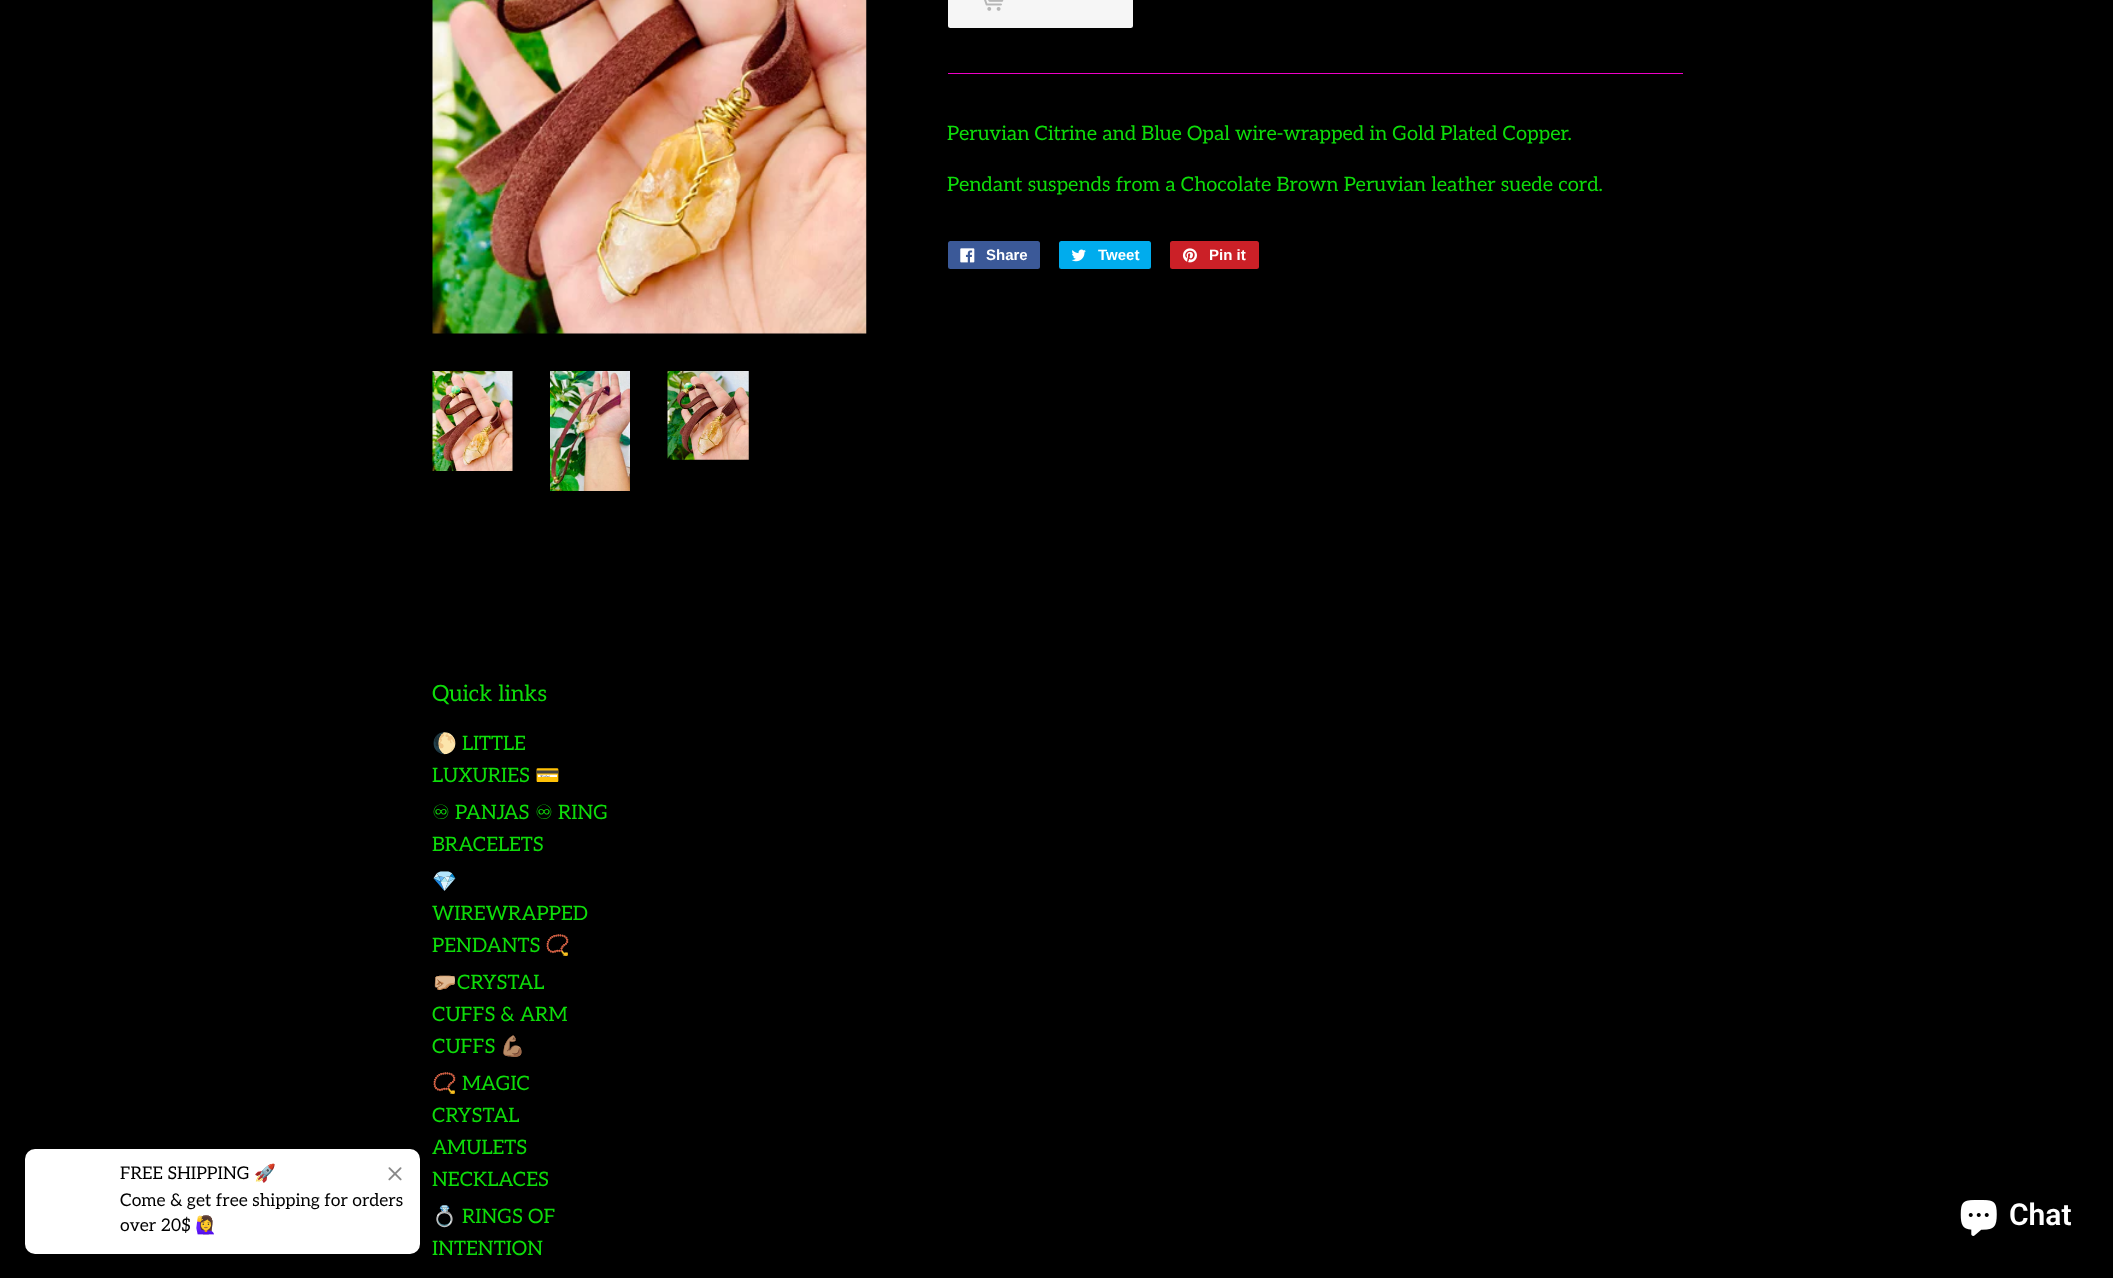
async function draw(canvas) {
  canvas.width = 2113
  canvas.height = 1278
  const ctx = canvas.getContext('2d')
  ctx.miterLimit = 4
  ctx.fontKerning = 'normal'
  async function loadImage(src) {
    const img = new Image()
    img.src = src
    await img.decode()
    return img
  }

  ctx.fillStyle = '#000'
  ctx.fillRect(0, 0, 2113, 1278)
  ctx.drawImage(await loadImage('image0.png'), 432, 0, 435, 334)
  ctx.drawImage(await loadImage('image1.png'), 432, 371, 81, 100)
  ctx.drawImage(await loadImage('image2.png'), 550, 371, 80, 120)
  ctx.drawImage(await loadImage('image3.png'), 667, 371, 82, 89)
  ctx.fillStyle = '#f6f6f6'
  ctx.beginPath()
  ctx.roundRect(949.5, -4.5, 182, 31, 1)
  ctx.fill()
  ctx.strokeStyle = '#f6f6f6'
  ctx.lineWidth = 3
  ctx.stroke()
  ctx.drawImage(await loadImage('image4.png'), 984, 0, 20, 11)
  ctx.fillStyle = '#ef00c7'
  ctx.fillRect(948, 73, 735, 1)
  ctx.font = '20px Aleo'
  ctx.fillStyle = '#0edc0a'
  ctx.fillText('Peruvian Citrine and Blue Opal wire-wrapped in Gold Plated Copper.', 947, 140)
  ctx.fillText('Pendant suspends from a Chocolate Brown Peruvian leather suede cord.', 947, 191)
  ctx.fillStyle = '#3b5998'
  ctx.beginPath()
  ctx.roundRect(948, 241, 92, 28, 2.5)
  ctx.fill()
  ctx.drawImage(await loadImage('image5.png'), 960, 248, 15, 15)
  ctx.font = 'bold 15px Liberation Sans'
  ctx.fillStyle = '#fff'
  ctx.fillText('Share', 986, 260)
  ctx.fillStyle = '#00aced'
  ctx.beginPath()
  ctx.roundRect(1059, 241, 92, 28, 2.5)
  ctx.fill()
  ctx.drawImage(await loadImage('image6.png'), 1071, 249, 15, 13)
  ctx.fillStyle = '#fff'
  ctx.fillText('Tweet', 1098, 260)
  ctx.fillStyle = '#cb2027'
  ctx.beginPath()
  ctx.roundRect(1170, 241, 89, 28, 2.5)
  ctx.fill()
  ctx.drawImage(await loadImage('image7.png'), 1182, 248, 15, 15)
  ctx.fillStyle = '#fff'
  ctx.fillText('Pin it', 1209, 260)
  ctx.beginPath()
  ctx.roundRect(25, 1149, 395, 105, 10)
  ctx.fill()
  ctx.font = '17.5px Aleo'
  ctx.fillStyle = '#000'
  ctx.fillText('FREE SHIPPING', 120, 1179)
  ctx.font = '17.5px Noto Color Emoji'
  ctx.fillText('🚀', 254, 1179)
  ctx.font = '17.5px Aleo'
  ctx.fillText('Come & get free shipping for orders', 120, 1206)
  ctx.fillText('over 20$', 120, 1231)
  ctx.font = '17.5px Noto Color Emoji'
  ctx.fillText('🙋‍♀', 195, 1231)
  ctx.drawImage(await loadImage('image8.png'), 388, 1167, 14, 14)
  ctx.font = '22.5px Aleo'
  ctx.fillStyle = '#0edc0a'
  ctx.fillText('Quick links', 432, 701)
  ctx.font = '20px Noto Color Emoji'
  ctx.fillText('🌔', 432, 750)
  ctx.font = '20px Aleo'
  ctx.fillText('LITTLE', 462, 750)
  ctx.fillText('LUXURIES', 432, 782)
  ctx.font = '20px Noto Color Emoji'
  ctx.fillText('💳', 535, 782)
  ctx.font = '20px DejaVu Sans'
  ctx.fillText('♾', 432, 819)
  ctx.font = '20px Aleo'
  ctx.fillText('PANJAS', 455, 819)
  ctx.font = '20px DejaVu Sans'
  ctx.fillText('♾', 535, 819)
  ctx.font = '20px Aleo'
  ctx.fillText('RING', 558, 819)
  ctx.fillText('BRACELETS', 432, 851)
  ctx.font = '20px Noto Color Emoji'
  ctx.fillText('💎', 432, 888)
  ctx.font = '20px Aleo'
  ctx.fillText('WIREWRAPPED', 432, 920)
  ctx.fillText('PENDANTS', 432, 952)
  ctx.font = '20px Noto Color Emoji'
  ctx.fillText('📿', 545, 952)
  ctx.fillText('🤛🏼', 432, 989)
  ctx.font = '20px Aleo'
  ctx.fillText('CRYSTAL', 457, 989)
  ctx.fillText('CUFFS & ARM', 432, 1021)
  ctx.fillText('CUFFS', 432, 1053)
  ctx.font = '20px Noto Color Emoji'
  ctx.fillText('💪🏽', 500, 1053)
  ctx.fillText('📿', 432, 1090)
  ctx.font = '20px Aleo'
  ctx.fillText('MAGIC', 462, 1090)
  ctx.fillText('CRYSTAL', 432, 1122)
  ctx.fillText('AMULETS', 432, 1154)
  ctx.fillText('NECKLACES', 432, 1186)
  ctx.font = '20px Noto Color Emoji'
  ctx.fillText('💍', 432, 1223)
  ctx.font = '20px Aleo'
  ctx.fillText('RINGS OF', 462, 1223)
  ctx.fillText('INTENTION', 432, 1255)
  ctx.drawImage(await loadImage('image9.png'), 1960, 1200, 37, 36)
  ctx.font = '600 30px Roboto'
  ctx.fillStyle = '#fff'
  ctx.fillText('Chat', 2009, 1225)
}

draw(document.querySelector('canvas'))
